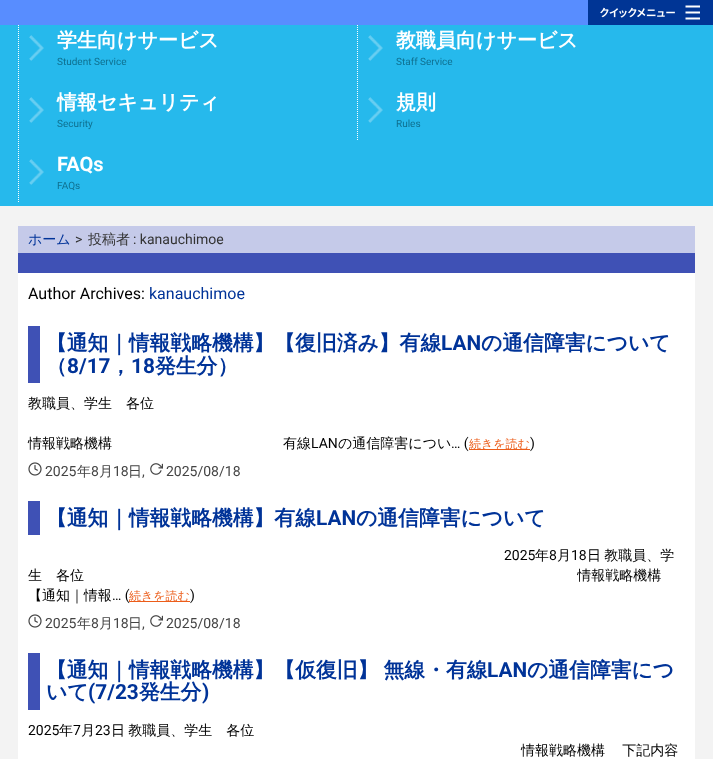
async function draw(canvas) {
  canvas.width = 713
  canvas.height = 759
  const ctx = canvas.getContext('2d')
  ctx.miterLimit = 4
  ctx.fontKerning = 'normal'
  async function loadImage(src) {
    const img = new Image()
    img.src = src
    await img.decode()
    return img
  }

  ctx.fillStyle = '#f3f3f3'
  ctx.fillRect(0, 0, 713, 759)
  ctx.fillStyle = '#26b9ec'
  ctx.fillRect(0, 25, 713, 181)
  ctx.beginPath()
  ctx.moveTo(18.5, 17)
  ctx.lineTo(18.5, 79)
  ctx.strokeStyle = '#fff'
  ctx.setLineDash([1, 1])
  ctx.stroke()
  ctx.beginPath()
  ctx.moveTo(357.5, 17)
  ctx.lineTo(357.5, 79)
  ctx.stroke()
  ctx.fillStyle = '#588dff'
  ctx.fillRect(0, 0, 588, 25)
  ctx.fillStyle = '#003595'
  ctx.fillRect(588, 0, 125, 25)
  ctx.drawImage(await loadImage('image0.png'), 600, 5, 100, 15)
  ctx.drawImage(await loadImage('image1.png'), 29, 35, 15, 26)
  ctx.font = 'bold 20px WenQuanYi Zen Hei'
  ctx.fillStyle = '#fff'
  ctx.fillText('学生向けサービス', 57, 47)
  ctx.font = '10px Roboto'
  ctx.fillStyle = '#0f7090'
  ctx.fillText('Student Service', 57, 65)
  ctx.drawImage(await loadImage('image2.png'), 368, 35, 15, 26)
  ctx.font = 'bold 20px WenQuanYi Zen Hei'
  ctx.fillStyle = '#fff'
  ctx.fillText('教職員向けサービス', 396, 47)
  ctx.font = '10px Roboto'
  ctx.fillStyle = '#0f7090'
  ctx.fillText('Staff Service', 396, 65)
  ctx.beginPath()
  ctx.moveTo(18.5, 79)
  ctx.lineTo(18.5, 141)
  ctx.stroke()
  ctx.drawImage(await loadImage('image1.png'), 29, 97, 15, 26)
  ctx.font = 'bold 20px WenQuanYi Zen Hei'
  ctx.fillStyle = '#fff'
  ctx.fillText('情報セキュリティ', 57, 109)
  ctx.font = '10px Roboto'
  ctx.fillStyle = '#0f7090'
  ctx.fillText('Security', 57, 127)
  ctx.beginPath()
  ctx.moveTo(357.5, 79)
  ctx.lineTo(357.5, 141)
  ctx.stroke()
  ctx.drawImage(await loadImage('image2.png'), 368, 97, 15, 26)
  ctx.font = 'bold 20px WenQuanYi Zen Hei'
  ctx.fillStyle = '#fff'
  ctx.fillText('規則', 396, 109)
  ctx.font = '10px Roboto'
  ctx.fillStyle = '#0f7090'
  ctx.fillText('Rules', 396, 127)
  ctx.beginPath()
  ctx.moveTo(18.5, 141)
  ctx.lineTo(18.5, 203)
  ctx.stroke()
  ctx.drawImage(await loadImage('image1.png'), 29, 159, 15, 26)
  ctx.font = 'bold 20px Roboto'
  ctx.fillStyle = '#fff'
  ctx.fillText('FAQs', 57, 171)
  ctx.font = '10px Roboto'
  ctx.fillStyle = '#0f7090'
  ctx.fillText('FAQs', 57, 189)
  ctx.fillStyle = '#c5cae9'
  ctx.fillRect(18, 226, 677, 27)
  ctx.font = '500 14px WenQuanYi Zen Hei'
  ctx.fillStyle = '#003398'
  ctx.fillText('ホーム', 28, 244)
  ctx.font = '14px Roboto'
  ctx.fillStyle = '#333'
  ctx.fillText('>', 75, 244)
  ctx.font = '500 14px WenQuanYi Zen Hei'
  ctx.fillText('投稿者', 88, 244)
  ctx.font = '14px Roboto'
  ctx.fillText(': kanauchimoe', 133, 244)
  ctx.fillStyle = '#3f51b5'
  ctx.fillRect(18, 253, 677, 20)
  ctx.fillStyle = '#fff'
  ctx.fillRect(18, 273, 677, 486)
  ctx.font = '16px Roboto'
  ctx.fillStyle = '#000'
  ctx.fillText('Author Archives:', 28, 299)
  ctx.fillStyle = '#003398'
  ctx.fillText('kanauchimoe', 149, 299)
  ctx.fillStyle = '#3f51b5'
  ctx.fillRect(28, 326, 12, 57)
  ctx.font = 'bold 20.8px WenQuanYi Zen Hei'
  ctx.fillStyle = '#003398'
  ctx.fillText('【通知｜情報戦略機構】【復旧済み】有線', 46, 350)
  ctx.font = 'bold 20.8px Roboto'
  ctx.fillText('LAN', 441, 350)
  ctx.font = 'bold 20.8px WenQuanYi Zen Hei'
  ctx.fillText('の通信障害について', 481, 350)
  ctx.fillText('（', 46, 373)
  ctx.font = 'bold 20.8px Roboto'
  ctx.fillText('8/17', 67, 373)
  ctx.font = 'bold 20.8px WenQuanYi Zen Hei'
  ctx.fillText('，', 110, 373)
  ctx.font = 'bold 20.8px Roboto'
  ctx.fillText('18', 131, 373)
  ctx.font = 'bold 20.8px WenQuanYi Zen Hei'
  ctx.fillText('発生分）', 155, 373)
  ctx.font = '500 14px WenQuanYi Zen Hei'
  ctx.fillStyle = '#000'
  ctx.fillText('教職員、学生　各位', 28, 408)
  ctx.fillText('情報戦略機構', 28, 448)
  ctx.fillText('有線', 283, 448)
  ctx.font = '14px Roboto'
  ctx.fillText('LAN', 311, 448)
  ctx.font = '500 14px WenQuanYi Zen Hei'
  ctx.fillText('の通信障害につい', 338, 448)
  ctx.font = '14px Roboto'
  ctx.fillText('… (', 451, 448)
  ctx.fillStyle = '#ec5d1a'
  ctx.fillRect(469, 449, 61, 1)
  ctx.font = '500 12px WenQuanYi Zen Hei'
  ctx.fillText('続きを読む', 469, 448)
  ctx.font = '14px Roboto'
  ctx.fillStyle = '#000'
  ctx.fillText(')', 530, 448)
  ctx.drawImage(await loadImage('image3.png'), 28, 462, 14, 14)
  ctx.fillStyle = '#444'
  ctx.fillText('2025', 45, 476)
  ctx.font = '500 14px WenQuanYi Zen Hei'
  ctx.fillText('年', 77, 476)
  ctx.font = '14px Roboto'
  ctx.fillText('8', 91, 476)
  ctx.font = '500 14px WenQuanYi Zen Hei'
  ctx.fillText('月', 99, 476)
  ctx.font = '14px Roboto'
  ctx.fillText('18', 113, 476)
  ctx.font = '500 14px WenQuanYi Zen Hei'
  ctx.fillText('日', 128, 476)
  ctx.font = '14px Roboto'
  ctx.fillText(',', 142, 476)
  ctx.drawImage(await loadImage('image4.png'), 150, 463, 13, 12)
  ctx.fillText('2025/08/18', 166, 476)
  ctx.fillStyle = '#3f51b5'
  ctx.fillRect(28, 501, 12, 34)
  ctx.font = 'bold 20.8px WenQuanYi Zen Hei'
  ctx.fillStyle = '#003398'
  ctx.fillText('【通知｜情報戦略機構】有線', 46, 525)
  ctx.font = 'bold 20.8px Roboto'
  ctx.fillText('LAN', 316, 525)
  ctx.font = 'bold 20.8px WenQuanYi Zen Hei'
  ctx.fillText('の通信障害について', 356, 525)
  ctx.font = '14px Roboto'
  ctx.fillStyle = '#000'
  ctx.fillText('2025', 504, 560)
  ctx.font = '500 14px WenQuanYi Zen Hei'
  ctx.fillText('年', 535, 560)
  ctx.font = '14px Roboto'
  ctx.fillText('8', 549, 560)
  ctx.font = '500 14px WenQuanYi Zen Hei'
  ctx.fillText('月', 557, 560)
  ctx.font = '14px Roboto'
  ctx.fillText('18', 571, 560)
  ctx.wordSpacing = '-1px'
  ctx.font = '500 14px WenQuanYi Zen Hei'
  ctx.fillText('日 教職員、学', 587, 560)
  ctx.fillText('生　各位 　　　　　　　　　　　　　　　　　　　　　　　　　　　　　　　　　　　情報戦略機構', 28, 580)
  ctx.wordSpacing = '0px'
  ctx.fillText('【通知｜情報', 28, 600)
  ctx.font = '14px Roboto'
  ctx.fillText('… (', 112, 600)
  ctx.fillStyle = '#ec5d1a'
  ctx.fillRect(129, 601, 61, 1)
  ctx.font = '500 12px WenQuanYi Zen Hei'
  ctx.fillText('続きを読む', 129, 600)
  ctx.font = '14px Roboto'
  ctx.fillStyle = '#000'
  ctx.fillText(')', 190, 600)
  ctx.drawImage(await loadImage('image3.png'), 28, 614, 14, 14)
  ctx.fillStyle = '#444'
  ctx.fillText('2025', 45, 628)
  ctx.font = '500 14px WenQuanYi Zen Hei'
  ctx.fillText('年', 77, 628)
  ctx.font = '14px Roboto'
  ctx.fillText('8', 91, 628)
  ctx.font = '500 14px WenQuanYi Zen Hei'
  ctx.fillText('月', 99, 628)
  ctx.font = '14px Roboto'
  ctx.fillText('18', 113, 628)
  ctx.font = '500 14px WenQuanYi Zen Hei'
  ctx.fillText('日', 128, 628)
  ctx.font = '14px Roboto'
  ctx.fillText(',', 142, 628)
  ctx.drawImage(await loadImage('image4.png'), 150, 615, 13, 12)
  ctx.fillText('2025/08/18', 166, 628)
  ctx.fillStyle = '#3f51b5'
  ctx.fillRect(28, 653, 12, 57)
  ctx.wordSpacing = '-1px'
  ctx.font = 'bold 20.8px WenQuanYi Zen Hei'
  ctx.fillStyle = '#003398'
  ctx.fillText('【通知｜情報戦略機構】【仮復旧】 無線・有線', 46, 677)
  ctx.wordSpacing = '0px'
  ctx.font = 'bold 20.8px Roboto'
  ctx.fillText('LAN', 487, 677)
  ctx.font = 'bold 20.8px WenQuanYi Zen Hei'
  ctx.fillText('の通信障害につ', 527, 677)
  ctx.fillText('いて', 46, 699)
  ctx.font = 'bold 20.8px Roboto'
  ctx.fillText('(7/23', 88, 699)
  ctx.font = 'bold 20.8px WenQuanYi Zen Hei'
  ctx.fillText('発生分', 139, 699)
  ctx.font = 'bold 20.8px Roboto'
  ctx.fillText(')', 202, 699)
  ctx.font = '14px Roboto'
  ctx.fillStyle = '#000'
  ctx.fillText('2025', 28, 735)
  ctx.font = '500 14px WenQuanYi Zen Hei'
  ctx.fillText('年', 59, 735)
  ctx.font = '14px Roboto'
  ctx.fillText('7', 73, 735)
  ctx.font = '500 14px WenQuanYi Zen Hei'
  ctx.fillText('月', 81, 735)
  ctx.font = '14px Roboto'
  ctx.fillText('23', 95, 735)
  ctx.wordSpacing = '-1px'
  ctx.font = '500 14px WenQuanYi Zen Hei'
  ctx.fillText('日 教職員、学生　各位', 111, 735)
  ctx.fillText('情報戦略機構 　下記内容', 521, 755)
}

draw(document.querySelector('canvas'))
